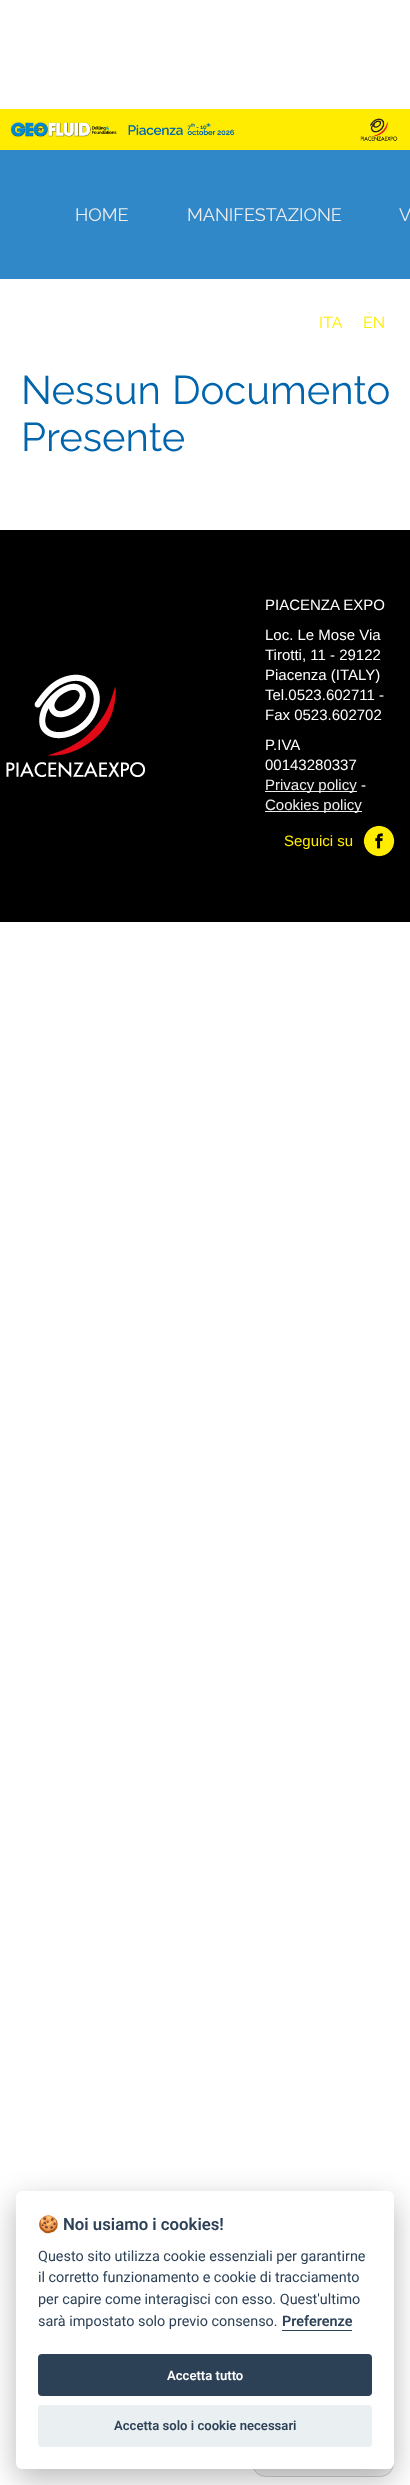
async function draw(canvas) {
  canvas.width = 410
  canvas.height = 2485
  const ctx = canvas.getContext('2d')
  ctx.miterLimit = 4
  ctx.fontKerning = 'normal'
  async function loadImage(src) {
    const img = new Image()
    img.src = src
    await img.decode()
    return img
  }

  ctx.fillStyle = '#fff'
  ctx.fillRect(0, 0, 410, 2485)
  ctx.fillStyle = '#3188c8'
  ctx.fillRect(0, 150, 410, 129)
  ctx.font = '100 18px Raleway'
  ctx.fillStyle = '#eee'
  ctx.fillText('HOME', 75, 221)
  ctx.fillText('MANIFESTAZIONE', 187, 221)
  ctx.fillText('V', 399, 221)
  ctx.drawImage(await loadImage('image0.png'), 0, 109, 410, 41)
  ctx.font = '100 16px Raleway'
  ctx.fillStyle = '#ffec00'
  ctx.fillText('ITA', 319, 328)
  ctx.fillText('EN', 363, 328)
  ctx.wordSpacing = '1px'
  ctx.font = '100 40px Raleway'
  ctx.fillStyle = '#0065ad'
  ctx.fillText('Nessun Documento', 21, 404)
  ctx.wordSpacing = '0px'
  ctx.fillText('Presente', 21, 451)
  ctx.fillStyle = '#000'
  ctx.fillRect(0, 530, 410, 392)
  ctx.font = '15px Liberation Sans'
  ctx.fillStyle = '#fff'
  ctx.fillText('PIACENZA EXPO', 265, 610)
  ctx.drawImage(await loadImage('image1.png'), 6, 674, 139, 104)
  ctx.fillText('Loc. Le Mose Via', 265, 640)
  ctx.fillText('Tirotti, 11 - 29122', 265, 660)
  ctx.fillText('Piacenza (ITALY)', 265, 680)
  ctx.fillText('Tel.0523.602711 -', 265, 700)
  ctx.fillText('Fax 0523.602702', 265, 720)
  ctx.fillText('P.IVA', 265, 750)
  ctx.fillText('00143280337', 265, 770)
  ctx.fillStyle = '#eee'
  ctx.fillRect(265, 791, 92, 1)
  ctx.fillText('Privacy policy', 265, 790)
  ctx.fillStyle = '#fff'
  ctx.fillText('-', 361, 790)
  ctx.fillStyle = '#eee'
  ctx.fillRect(265, 811, 97, 1)
  ctx.fillText('Cookies policy', 265, 810)
  ctx.fillStyle = '#ffec00'
  ctx.fillText('Seguici su', 284, 846)
  ctx.drawImage(await loadImage('image2.png'), 363, 825, 32, 32)
  ctx.fillStyle = '#efefef'
  ctx.beginPath()
  ctx.roundRect(252.5, 2450.5, 141, 26, 13)
  ctx.fill()
  ctx.strokeStyle = '#ccc'
  ctx.stroke()
  ctx.fillStyle = '#02020347'
  ctx.filter = 'blur(15px)'
  ctx.beginPath()
  ctx.roundRect(16, 2201, 378, 278, 6)
  ctx.fill()
  ctx.filter = 'none'
  ctx.fillStyle = '#fff'
  ctx.beginPath()
  ctx.roundRect(16, 2191, 378, 278, 6)
  ctx.fill()
  ctx.font = 'bold 16.75px Noto Color Emoji'
  ctx.fillStyle = '#2d4156'
  ctx.fillText('🍪', 38, 2230)
  ctx.font = '600 16.75px Roboto'
  ctx.fillText('Noi usiamo i cookies!', 63, 2230)
  ctx.font = '14.4px Roboto'
  ctx.fillText('Questo sito utilizza cookie essenziali per garantirne', 38, 2261)
  ctx.fillText('il corretto funzionamento e cookie di tracciamento', 38, 2282)
  ctx.fillText('per capire come interagisci con esso. Quest\'ultimo', 38, 2304)
  ctx.fillText('sarà impostato solo previo consenso.', 38, 2326)
  ctx.font = '600 14.4px Roboto'
  ctx.fillText('Preferenze', 282, 2326)
  ctx.fillRect(282, 2330, 70, 1)
  ctx.beginPath()
  ctx.roundRect(38, 2354, 334, 42, 4)
  ctx.fill()
  ctx.font = '600 13.1px Roboto'
  ctx.fillStyle = '#fff'
  ctx.fillText('Accetta tutto', 167, 2380)
  ctx.fillStyle = '#eaeff2'
  ctx.beginPath()
  ctx.roundRect(38, 2405, 334, 42, 4)
  ctx.fill()
  ctx.fillStyle = '#2d4156'
  ctx.fillText('Accetta solo i cookie necessari', 114, 2430)
}

draw(document.querySelector('canvas'))
